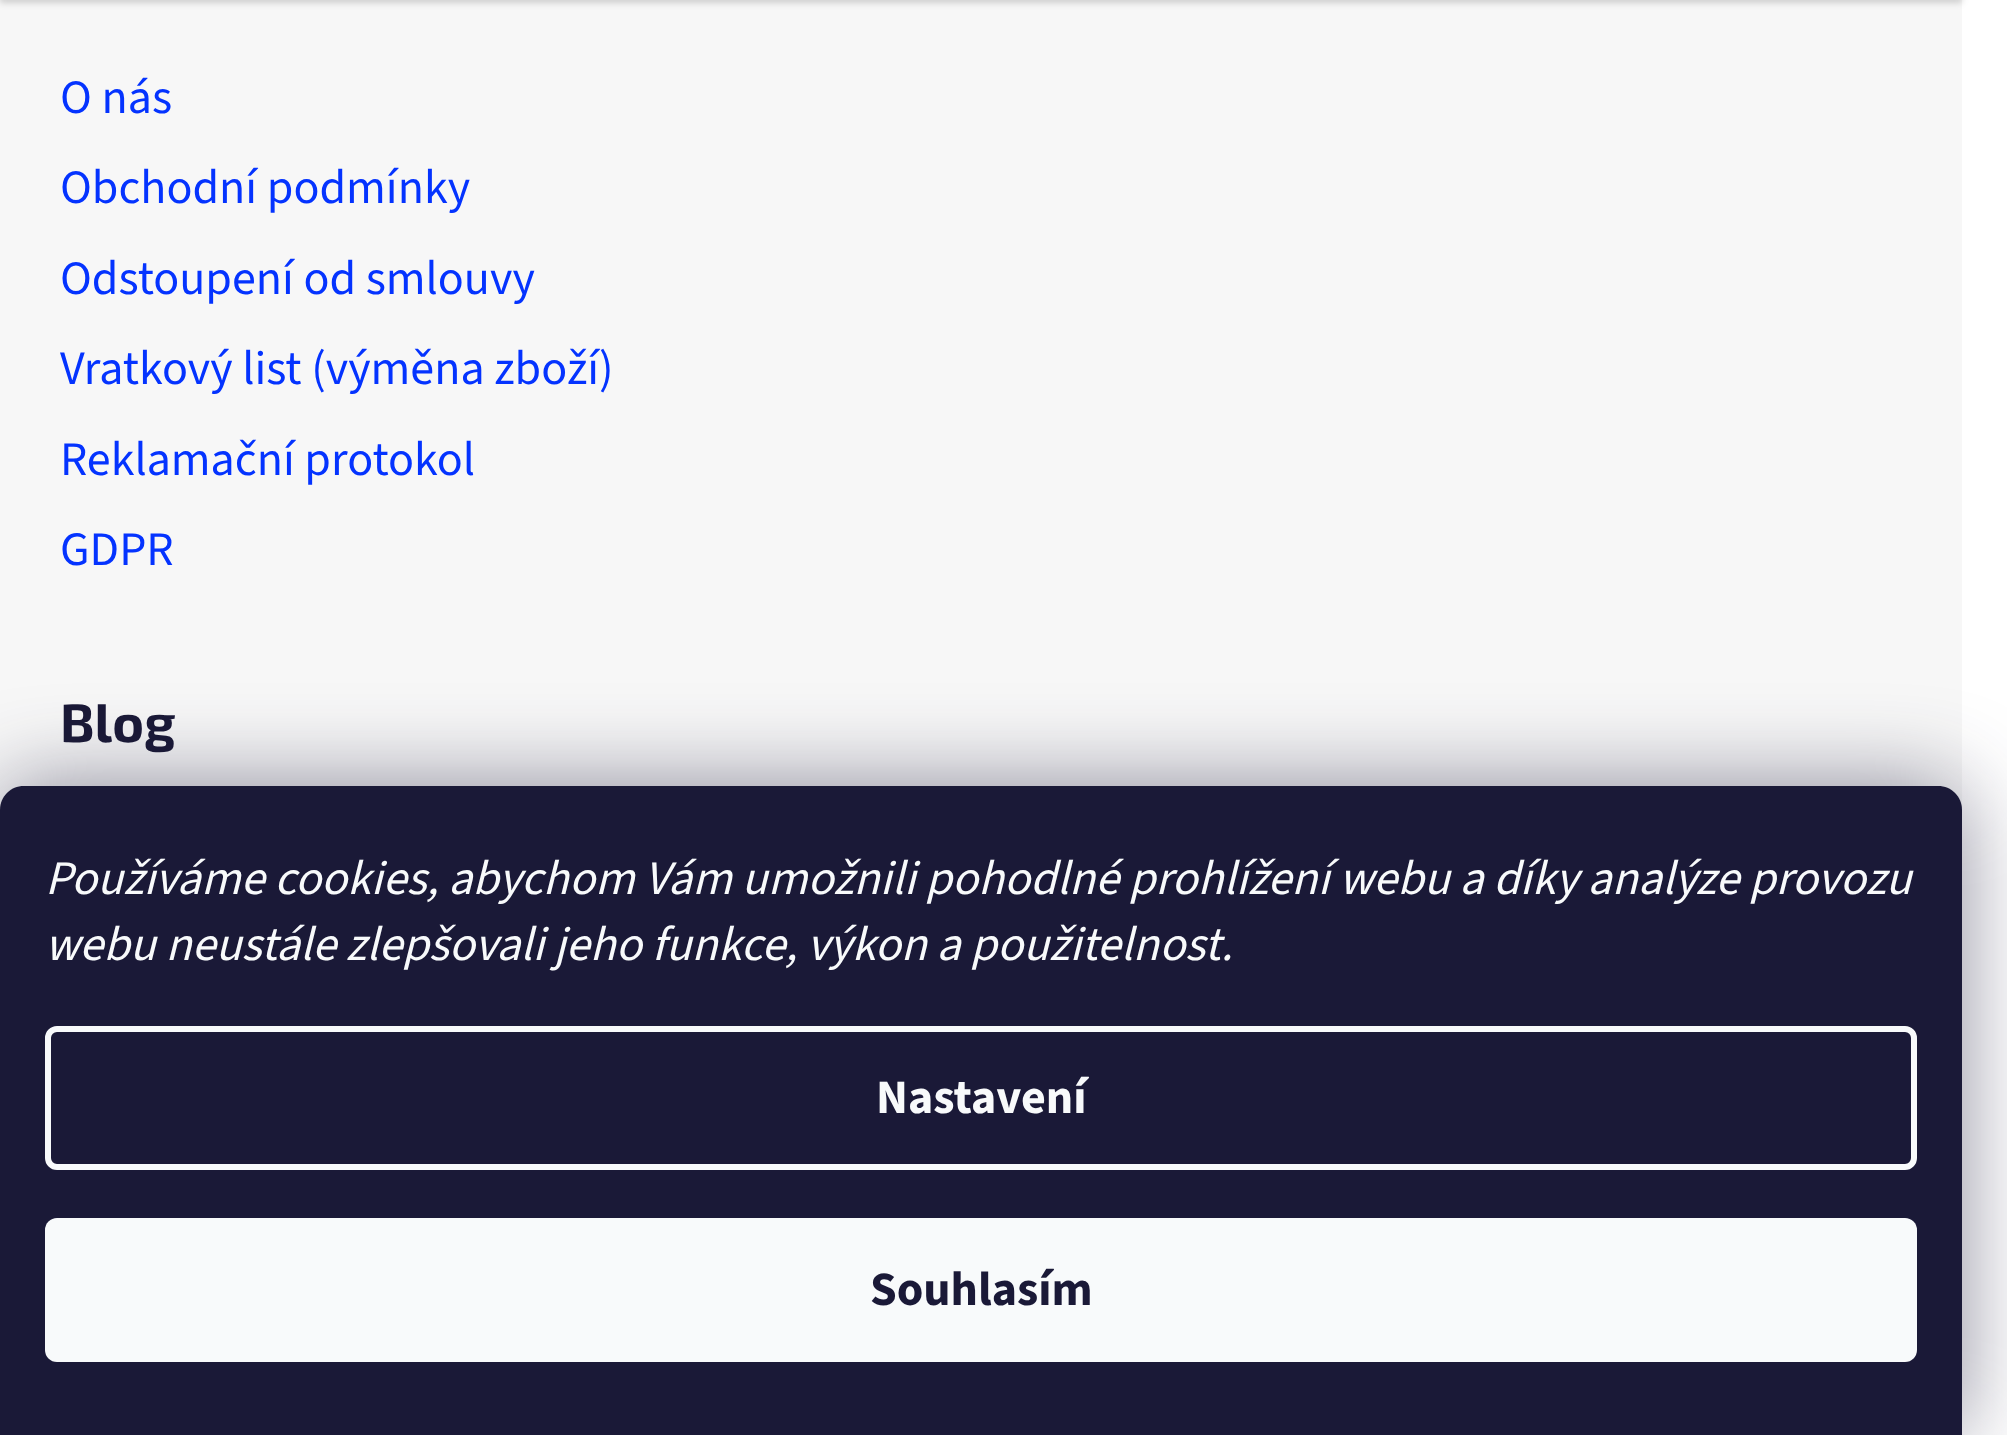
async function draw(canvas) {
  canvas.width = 2007
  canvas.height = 1435
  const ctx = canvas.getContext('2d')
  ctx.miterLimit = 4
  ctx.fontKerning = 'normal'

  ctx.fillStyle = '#fff'
  ctx.fillRect(0, 0, 2007, 1435)
  ctx.fillStyle = '#f7f7f7'
  ctx.fillRect(0, 0, 1962, 810)
  ctx.fillStyle = '#00000029'
  ctx.filter = 'blur(3px)'
  ctx.beginPath()
  ctx.rect(0, -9, 1962, 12)
  ctx.fill()
  ctx.filter = 'none'
  ctx.font = '48px "Source Sans 3"'
  ctx.fillStyle = '#0433ff'
  ctx.fillText('O nás', 60, 113)
  ctx.fillText('Obchodní podmínky', 60, 203)
  ctx.fillText('Odstoupení od smlouvy', 60, 294)
  ctx.fillText('Vratkový list (výměna zboží)', 60, 384)
  ctx.fillText('Reklamační protokol', 60, 475)
  ctx.fillText('GDPR', 60, 565)
  ctx.font = 'bold 54px "Exo 2"'
  ctx.fillStyle = '#1a1937'
  ctx.fillText('Blog', 60, 742)
  ctx.fillStyle = '#1b193980'
  ctx.filter = 'blur(45px)'
  ctx.beginPath()
  ctx.roundRect(0, 786, 1962, 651, 24)
  ctx.fill()
  ctx.filter = 'none'
  ctx.fillStyle = '#1a1937'
  ctx.beginPath()
  ctx.moveTo(24, 786)
  ctx.lineTo(1938, 786)
  ctx.bezierCurveTo(1951.5, 786, 1962, 796.5, 1962, 810)
  ctx.lineTo(1962, 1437)
  ctx.lineTo(0, 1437)
  ctx.lineTo(0, 810)
  ctx.bezierCurveTo(0, 796.5, 10.5, 786, 24, 786)
  ctx.closePath()
  ctx.fill()
  ctx.font = 'italic 48px "Source Sans 3"'
  ctx.fillStyle = '#f8fafb'
  ctx.fillText('Používáme cookies, abychom Vám umožnili pohodlné prohlížení webu a díky analýze provozu', 45, 894)
  ctx.fillText('webu neustále zlepšovali jeho funkce, výkon a použitelnost.', 45, 960)
  ctx.beginPath()
  ctx.roundRect(48, 1029, 1866, 138, 9)
  ctx.strokeStyle = '#f8fafb'
  ctx.lineWidth = 6
  ctx.stroke()
  ctx.font = 'bold 48px "Source Sans 3"'
  ctx.fillText('Nastavení', 876, 1113)
  ctx.beginPath()
  ctx.roundRect(45, 1218, 1872, 144, 12)
  ctx.fill()
  ctx.fillStyle = '#1a1937'
  ctx.fillText('Souhlasím', 870, 1305)
}

draw(document.querySelector('canvas'))
